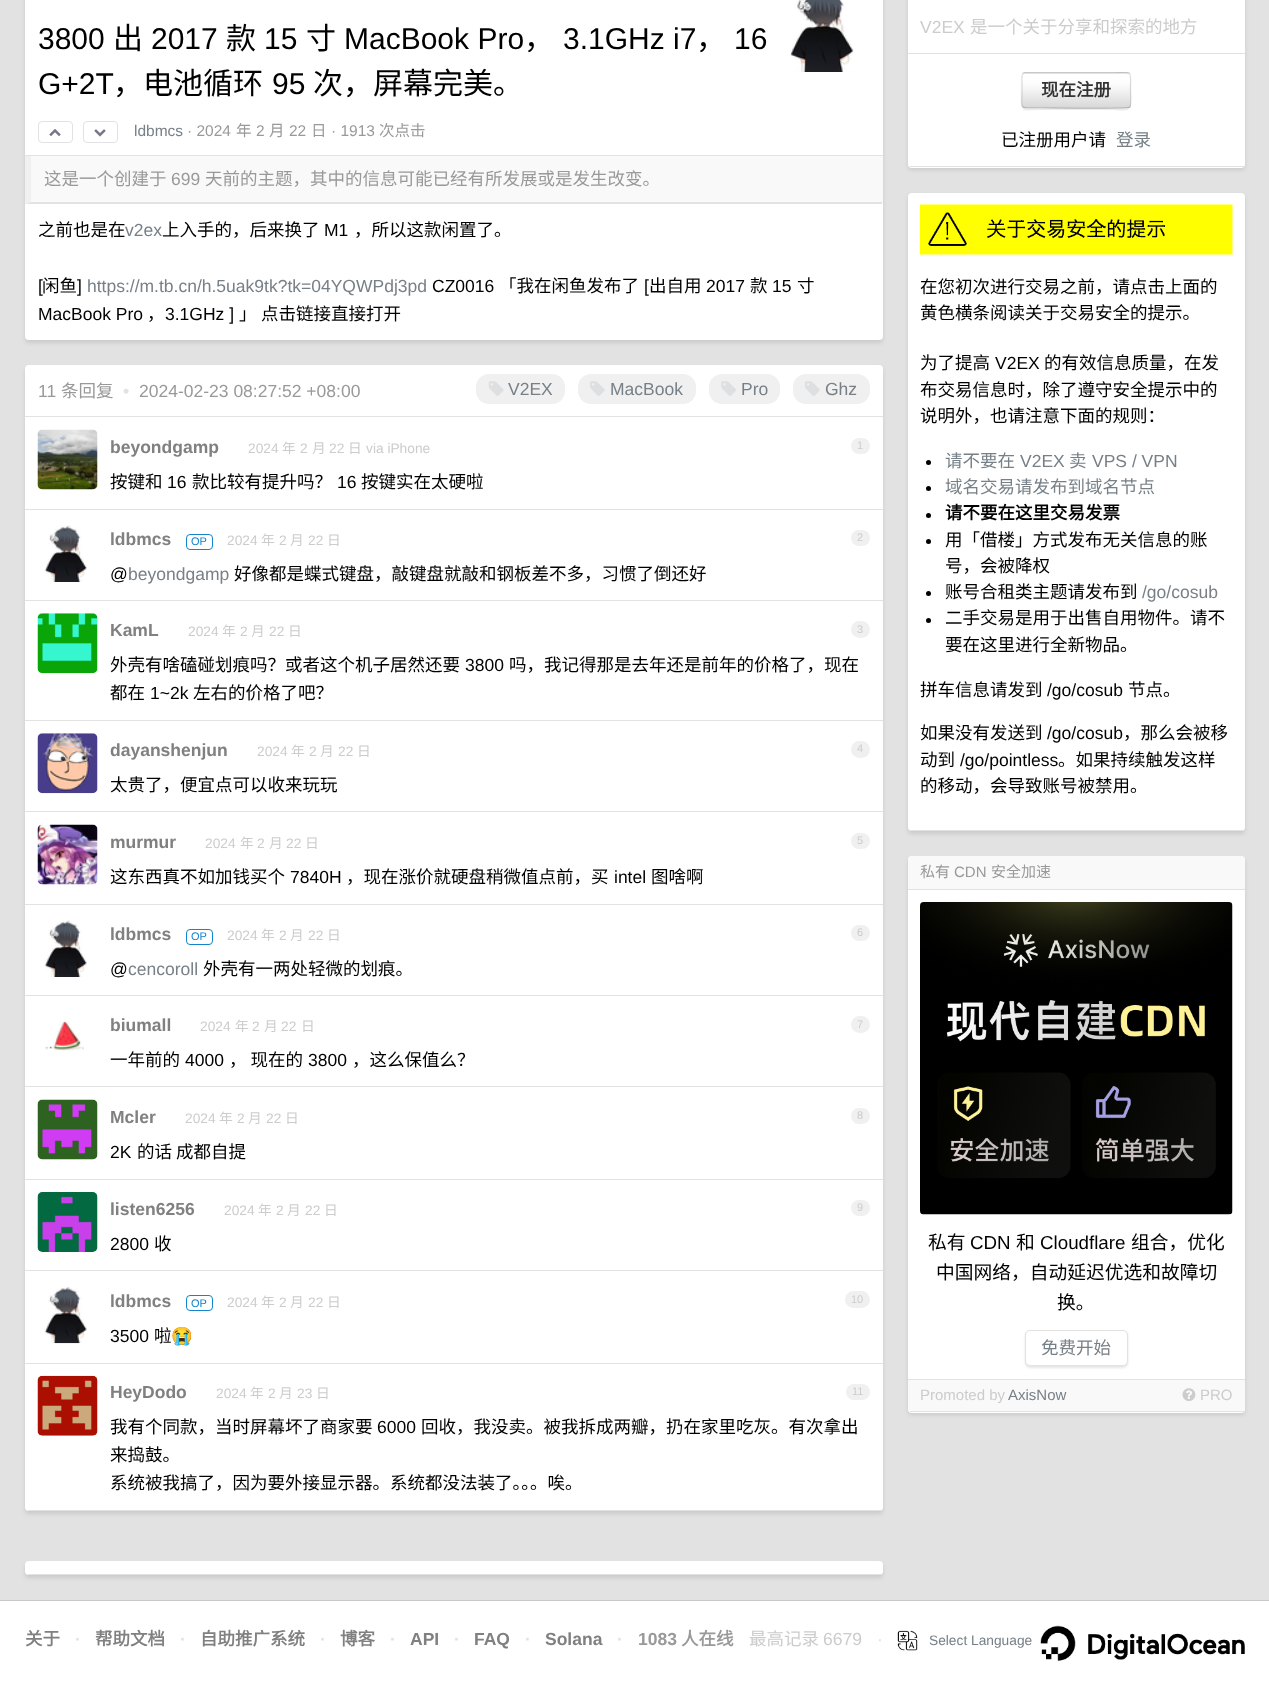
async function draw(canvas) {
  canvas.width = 1269
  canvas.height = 1692
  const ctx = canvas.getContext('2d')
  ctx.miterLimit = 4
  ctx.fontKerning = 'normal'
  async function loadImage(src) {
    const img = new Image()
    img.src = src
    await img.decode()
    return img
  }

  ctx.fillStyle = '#fff'
  ctx.fillRect(0, 0, 1269, 1692)
  ctx.fillStyle = '#e2e2e2'
  ctx.fillRect(0, 0, 1269, 1600)
  ctx.fillStyle = '#0000001a'
  ctx.filter = 'blur(2px)'
  ctx.beginPath()
  ctx.roundRect(25, -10, 858, 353, 4)
  ctx.fill()
  ctx.filter = 'none'
  ctx.fillStyle = '#fff'
  ctx.beginPath()
  ctx.roundRect(25, -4, 858, 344, 4)
  ctx.fill()
  ctx.fillStyle = '#e2e2e2'
  ctx.fillRect(25, 155, 858, 1)
  ctx.font = '30px Liberation Sans'
  ctx.fillStyle = '#000'
  ctx.fillText('3800', 38, 49)
  ctx.font = '30px Noto Sans CJK SC'
  ctx.fillText('出', 113, 49)
  ctx.font = '30px Liberation Sans'
  ctx.fillText('2017', 151, 49)
  ctx.font = '30px Noto Sans CJK SC'
  ctx.fillText('款', 226, 49)
  ctx.font = '30px Liberation Sans'
  ctx.fillText('15', 264, 49)
  ctx.font = '30px Noto Sans CJK SC'
  ctx.fillText('寸', 306, 49)
  ctx.font = '30px Liberation Sans'
  ctx.fillText('MacBook Pro', 344, 49)
  ctx.font = '30px Noto Sans CJK SC'
  ctx.fillText('，', 524, 49)
  ctx.font = '30px Liberation Sans'
  ctx.fillText('3.1GHz i7', 563, 49)
  ctx.font = '30px Noto Sans CJK SC'
  ctx.fillText('，', 696, 49)
  ctx.font = '30px Liberation Sans'
  ctx.fillText('16', 734, 49)
  ctx.fillText('G+2T', 38, 94)
  ctx.font = '30px Noto Sans CJK SC'
  ctx.fillText('，电池循环', 113, 94)
  ctx.font = '30px Liberation Sans'
  ctx.fillText('95', 272, 94)
  ctx.font = '30px Noto Sans CJK SC'
  ctx.fillText('次，屏幕完美。', 313, 94)
  ctx.drawImage(await loadImage('image0.png'), 790, 0, 64, 72)
  ctx.beginPath()
  ctx.roundRect(38.5, 121.5, 34, 21, 3.5)
  ctx.strokeStyle = '#e2e2e2'
  ctx.stroke()
  ctx.drawImage(await loadImage('image1.png'), 49, 129, 12, 7)
  ctx.beginPath()
  ctx.roundRect(83.5, 121.5, 34, 21, 3.5)
  ctx.stroke()
  ctx.drawImage(await loadImage('image2.png'), 94, 129, 12, 8)
  ctx.font = '15.5px Liberation Sans'
  ctx.fillStyle = '#778087'
  ctx.fillText('ldbmcs', 134, 136)
  ctx.fillStyle = '#999'
  ctx.fillText('· 2024', 187, 136)
  ctx.font = '15.5px Noto Sans CJK SC'
  ctx.fillText('年', 236, 136)
  ctx.font = '15.5px Liberation Sans'
  ctx.fillText('2', 256, 136)
  ctx.font = '15.5px Noto Sans CJK SC'
  ctx.fillText('月', 269, 136)
  ctx.font = '15.5px Liberation Sans'
  ctx.fillText('22', 289, 136)
  ctx.font = '15.5px Noto Sans CJK SC'
  ctx.fillText('日', 311, 136)
  ctx.font = '15.5px Liberation Sans'
  ctx.fillText('· 1913', 331, 136)
  ctx.font = '15.5px Noto Sans CJK SC'
  ctx.fillText('次点击', 379, 136)
  ctx.fillStyle = '#f9f9f9'
  ctx.fillRect(25, 156, 858, 48)
  ctx.fillStyle = '#e2e2e2'
  ctx.beginPath()
  ctx.moveTo(882, 204)
  ctx.lineTo(25, 204)
  ctx.lineTo(31, 202)
  ctx.lineTo(882, 202)
  ctx.closePath()
  ctx.fill()
  ctx.fillStyle = '#f0f0f0'
  ctx.beginPath()
  ctx.moveTo(25, 204)
  ctx.lineTo(25, 156)
  ctx.lineTo(31, 156)
  ctx.lineTo(31, 202)
  ctx.closePath()
  ctx.fill()
  ctx.font = '17.5px Noto Sans CJK SC'
  ctx.fillStyle = '#999'
  ctx.fillText('这是一个创建于', 44, 185)
  ctx.font = '17.5px Liberation Sans'
  ctx.fillText('699', 171, 185)
  ctx.font = '17.5px Noto Sans CJK SC'
  ctx.fillText('天前的主题，其中的信息可能已经有所发展或是发生改变。', 205, 185)
  ctx.fillStyle = '#000'
  ctx.fillText('之前也是在', 38, 236)
  ctx.font = '17.5px Liberation Sans'
  ctx.fillStyle = '#778087'
  ctx.fillText('v2ex', 125, 236)
  ctx.font = '17.5px Noto Sans CJK SC'
  ctx.fillStyle = '#000'
  ctx.fillText('上入手的，后来换了', 162, 236)
  ctx.font = '17.5px Liberation Sans'
  ctx.fillText('M1', 324, 236)
  ctx.font = '17.5px Noto Sans CJK SC'
  ctx.fillText('，所以这款闲置了。', 354, 236)
  ctx.font = '17.5px Liberation Sans'
  ctx.fillText('[', 38, 292)
  ctx.font = '17.5px Noto Sans CJK SC'
  ctx.fillText('闲鱼', 42, 292)
  ctx.font = '17.5px Liberation Sans'
  ctx.fillText(']', 77, 292)
  ctx.fillStyle = '#778087'
  ctx.fillText('https://m.tb.cn/h.5uak9tk?tk=04YQWPdj3pd', 87, 292)
  ctx.fillStyle = '#000'
  ctx.fillText('CZ0016', 432, 292)
  ctx.font = '17.5px Noto Sans CJK SC'
  ctx.fillText('「我在闲鱼发布了', 499, 292)
  ctx.font = '17.5px Liberation Sans'
  ctx.fillText('[', 644, 292)
  ctx.font = '17.5px Noto Sans CJK SC'
  ctx.fillText('出自用', 649, 292)
  ctx.font = '17.5px Liberation Sans'
  ctx.fillText('2017', 706, 292)
  ctx.font = '17.5px Noto Sans CJK SC'
  ctx.fillText('款', 750, 292)
  ctx.font = '17.5px Liberation Sans'
  ctx.fillText('15', 772, 292)
  ctx.font = '17.5px Noto Sans CJK SC'
  ctx.fillText('寸', 797, 292)
  ctx.font = '17.5px Liberation Sans'
  ctx.fillText('MacBook Pro', 38, 320)
  ctx.font = '17.5px Noto Sans CJK SC'
  ctx.fillText('，', 147, 320)
  ctx.font = '17.5px Liberation Sans'
  ctx.fillText('3.1GHz ]', 165, 320)
  ctx.font = '17.5px Noto Sans CJK SC'
  ctx.fillText('」', 239, 320)
  ctx.fillText('点击链接直接打开', 261, 320)
  ctx.fillStyle = '#0000001a'
  ctx.filter = 'blur(2px)'
  ctx.beginPath()
  ctx.roundRect(25, 368, 858, 1146, 4)
  ctx.fill()
  ctx.filter = 'none'
  ctx.fillStyle = '#fff'
  ctx.beginPath()
  ctx.roundRect(25, 365, 858, 1146, 4)
  ctx.fill()
  ctx.fillStyle = '#e2e2e2'
  ctx.fillRect(28, 1510, 853, 1)
  ctx.fillRect(25, 416, 858, 1)
  ctx.font = '17.5px Liberation Sans'
  ctx.fillStyle = '#999'
  ctx.fillText('11', 38, 397)
  ctx.font = '17.5px Noto Sans CJK SC'
  ctx.fillText('条回复', 61, 397)
  ctx.font = 'bold 17.5px Liberation Sans'
  ctx.fillStyle = '#e2e2e2'
  ctx.fillText('•', 123, 397)
  ctx.font = '17.5px Liberation Sans'
  ctx.fillStyle = '#999'
  ctx.fillText('2024-02-23 08:27:52 +08:00', 139, 397)
  ctx.fillStyle = '#f0f0f0'
  ctx.beginPath()
  ctx.roundRect(476, 374, 89, 30, 13)
  ctx.fill()
  ctx.drawImage(await loadImage('image3.png'), 488, 381, 16, 15)
  ctx.fillStyle = '#778087'
  ctx.fillText('V2EX', 508, 395)
  ctx.fillStyle = '#f0f0f0'
  ctx.beginPath()
  ctx.roundRect(578, 374, 118, 30, 13)
  ctx.fill()
  ctx.drawImage(await loadImage('image4.png'), 590, 381, 15, 15)
  ctx.fillStyle = '#778087'
  ctx.fillText('MacBook', 610, 395)
  ctx.fillStyle = '#f0f0f0'
  ctx.beginPath()
  ctx.roundRect(709, 374, 71, 30, 13)
  ctx.fill()
  ctx.drawImage(await loadImage('image5.png'), 721, 381, 15, 15)
  ctx.fillStyle = '#778087'
  ctx.fillText('Pro', 741, 395)
  ctx.fillStyle = '#f0f0f0'
  ctx.beginPath()
  ctx.roundRect(793, 374, 77, 30, 13)
  ctx.fill()
  ctx.drawImage(await loadImage('image4.png'), 805, 381, 15, 15)
  ctx.fillStyle = '#778087'
  ctx.fillText('Ghz', 825, 395)
  ctx.fillStyle = '#e2e2e2'
  ctx.fillRect(25, 509, 858, 1)
  ctx.drawImage(await loadImage('image6.png'), 37, 429, 61, 61)
  ctx.font = 'bold 17.5px Liberation Sans'
  ctx.fillStyle = '#808080'
  ctx.fillText('beyondgamp', 110, 453)
  ctx.font = '13.75px Liberation Sans'
  ctx.fillStyle = '#ccc'
  ctx.fillText('2024', 248, 453)
  ctx.font = '13.75px Noto Sans CJK SC'
  ctx.fillText('年', 282, 453)
  ctx.font = '13.75px Liberation Sans'
  ctx.fillText('2', 300, 453)
  ctx.font = '13.75px Noto Sans CJK SC'
  ctx.fillText('月', 312, 453)
  ctx.font = '13.75px Liberation Sans'
  ctx.fillText('22', 329, 453)
  ctx.font = '13.75px Noto Sans CJK SC'
  ctx.fillText('日', 348, 453)
  ctx.font = '13.75px Liberation Sans'
  ctx.fillText('via iPhone', 366, 453)
  ctx.fillStyle = '#f0f0f0'
  ctx.beginPath()
  ctx.roundRect(851, 438, 19, 16, 8)
  ctx.fill()
  ctx.font = '11px Liberation Sans'
  ctx.fillStyle = '#ccc'
  ctx.fillText('1', 857, 449)
  ctx.font = '17.5px Noto Sans CJK SC'
  ctx.fillStyle = '#000'
  ctx.fillText('按键和', 110, 488)
  ctx.font = '17.5px Liberation Sans'
  ctx.fillText('16', 167, 488)
  ctx.font = '17.5px Noto Sans CJK SC'
  ctx.fillText('款比较有提升吗？', 192, 488)
  ctx.font = '17.5px Liberation Sans'
  ctx.fillText('16', 337, 488)
  ctx.font = '17.5px Noto Sans CJK SC'
  ctx.fillText('按键实在太硬啦', 361, 488)
  ctx.fillStyle = '#e2e2e2'
  ctx.fillRect(25, 600, 858, 1)
  ctx.drawImage(await loadImage('image7.png'), 44, 525, 43, 57)
  ctx.font = 'bold 17.5px Liberation Sans'
  ctx.fillStyle = '#808080'
  ctx.fillText('ldbmcs', 110, 545)
  ctx.beginPath()
  ctx.roundRect(186.5, 534.5, 26, 15, 3.5)
  ctx.strokeStyle = '#1484cd'
  ctx.stroke()
  ctx.font = '11px Liberation Sans'
  ctx.fillStyle = '#1484cd'
  ctx.fillText('OP', 191, 545)
  ctx.font = '13.75px Liberation Sans'
  ctx.fillStyle = '#ccc'
  ctx.fillText('2024', 227, 545)
  ctx.font = '13.75px Noto Sans CJK SC'
  ctx.fillText('年', 261, 545)
  ctx.font = '13.75px Liberation Sans'
  ctx.fillText('2', 279, 545)
  ctx.font = '13.75px Noto Sans CJK SC'
  ctx.fillText('月', 290, 545)
  ctx.font = '13.75px Liberation Sans'
  ctx.fillText('22', 308, 545)
  ctx.font = '13.75px Noto Sans CJK SC'
  ctx.fillText('日', 327, 545)
  ctx.fillStyle = '#f0f0f0'
  ctx.beginPath()
  ctx.roundRect(851, 530, 19, 16, 8)
  ctx.fill()
  ctx.font = '11px Liberation Sans'
  ctx.fillStyle = '#ccc'
  ctx.fillText('2', 857, 541)
  ctx.font = '17.5px Liberation Sans'
  ctx.fillStyle = '#000'
  ctx.fillText('@', 110, 580)
  ctx.fillStyle = '#778087'
  ctx.fillText('beyondgamp', 128, 580)
  ctx.font = '17.5px Noto Sans CJK SC'
  ctx.fillStyle = '#000'
  ctx.fillText('好像都是蝶式键盘，敲键盘就敲和钢板差不多，习惯了倒还好', 234, 580)
  ctx.fillStyle = '#e2e2e2'
  ctx.fillRect(25, 720, 858, 1)
  ctx.drawImage(await loadImage('image8.png'), 37, 613, 61, 61)
  ctx.font = 'bold 17.5px Liberation Sans'
  ctx.fillStyle = '#808080'
  ctx.fillText('KamL', 110, 636)
  ctx.font = '13.75px Liberation Sans'
  ctx.fillStyle = '#ccc'
  ctx.fillText('2024', 188, 636)
  ctx.font = '13.75px Noto Sans CJK SC'
  ctx.fillText('年', 222, 636)
  ctx.font = '13.75px Liberation Sans'
  ctx.fillText('2', 240, 636)
  ctx.font = '13.75px Noto Sans CJK SC'
  ctx.fillText('月', 251, 636)
  ctx.font = '13.75px Liberation Sans'
  ctx.fillText('22', 269, 636)
  ctx.font = '13.75px Noto Sans CJK SC'
  ctx.fillText('日', 288, 636)
  ctx.fillStyle = '#f0f0f0'
  ctx.beginPath()
  ctx.roundRect(851, 621, 19, 17, 8.5)
  ctx.fill()
  ctx.font = '11px Liberation Sans'
  ctx.fillStyle = '#ccc'
  ctx.fillText('3', 857, 633)
  ctx.font = '17.5px Noto Sans CJK SC'
  ctx.fillStyle = '#000'
  ctx.fillText('外壳有啥磕碰划痕吗？或者这个机子居然还要', 110, 671)
  ctx.font = '17.5px Liberation Sans'
  ctx.fillText('3800', 465, 671)
  ctx.font = '17.5px Noto Sans CJK SC'
  ctx.fillText('吗，我记得那是去年还是前年的价格了，现在', 509, 671)
  ctx.fillText('都在', 110, 699)
  ctx.font = '17.5px Liberation Sans'
  ctx.fillText('1~2k', 150, 699)
  ctx.font = '17.5px Noto Sans CJK SC'
  ctx.fillText('左右的价格了吧？', 193, 699)
  ctx.fillStyle = '#e2e2e2'
  ctx.fillRect(25, 811, 858, 1)
  ctx.drawImage(await loadImage('image9.png'), 37, 733, 61, 61)
  ctx.font = 'bold 17.5px Liberation Sans'
  ctx.fillStyle = '#808080'
  ctx.fillText('dayanshenjun', 110, 756)
  ctx.font = '13.75px Liberation Sans'
  ctx.fillStyle = '#ccc'
  ctx.fillText('2024', 257, 756)
  ctx.font = '13.75px Noto Sans CJK SC'
  ctx.fillText('年', 291, 756)
  ctx.font = '13.75px Liberation Sans'
  ctx.fillText('2', 309, 756)
  ctx.font = '13.75px Noto Sans CJK SC'
  ctx.fillText('月', 320, 756)
  ctx.font = '13.75px Liberation Sans'
  ctx.fillText('22', 338, 756)
  ctx.font = '13.75px Noto Sans CJK SC'
  ctx.fillText('日', 357, 756)
  ctx.fillStyle = '#f0f0f0'
  ctx.beginPath()
  ctx.roundRect(851, 741, 19, 17, 8.5)
  ctx.fill()
  ctx.font = '11px Liberation Sans'
  ctx.fillStyle = '#ccc'
  ctx.fillText('4', 857, 752)
  ctx.font = '17.5px Noto Sans CJK SC'
  ctx.fillStyle = '#000'
  ctx.fillText('太贵了，便宜点可以收来玩玩', 110, 791)
  ctx.fillStyle = '#e2e2e2'
  ctx.fillRect(25, 904, 858, 1)
  ctx.drawImage(await loadImage('image10.png'), 37, 824, 61, 61)
  ctx.font = 'bold 17.5px Liberation Sans'
  ctx.fillStyle = '#808080'
  ctx.fillText('murmur', 110, 848)
  ctx.font = '13.75px Liberation Sans'
  ctx.fillStyle = '#ccc'
  ctx.fillText('2024', 205, 848)
  ctx.font = '13.75px Noto Sans CJK SC'
  ctx.fillText('年', 240, 848)
  ctx.font = '13.75px Liberation Sans'
  ctx.fillText('2', 257, 848)
  ctx.font = '13.75px Noto Sans CJK SC'
  ctx.fillText('月', 269, 848)
  ctx.font = '13.75px Liberation Sans'
  ctx.fillText('22', 286, 848)
  ctx.font = '13.75px Noto Sans CJK SC'
  ctx.fillText('日', 305, 848)
  ctx.fillStyle = '#f0f0f0'
  ctx.beginPath()
  ctx.roundRect(851, 833, 19, 16, 8)
  ctx.fill()
  ctx.font = '11px Liberation Sans'
  ctx.fillStyle = '#ccc'
  ctx.fillText('5', 857, 844)
  ctx.font = '17.5px Noto Sans CJK SC'
  ctx.fillStyle = '#000'
  ctx.fillText('这东西真不如加钱买个', 110, 883)
  ctx.font = '17.5px Liberation Sans'
  ctx.fillText('7840H', 290, 883)
  ctx.font = '17.5px Noto Sans CJK SC'
  ctx.fillText('，现在涨价就硬盘稍微值点前，买', 346, 883)
  ctx.font = '17.5px Liberation Sans'
  ctx.fillText('intel', 614, 883)
  ctx.font = '17.5px Noto Sans CJK SC'
  ctx.fillText('图啥啊', 651, 883)
  ctx.fillStyle = '#e2e2e2'
  ctx.fillRect(25, 995, 858, 1)
  ctx.drawImage(await loadImage('image7.png'), 44, 920, 43, 57)
  ctx.font = 'bold 17.5px Liberation Sans'
  ctx.fillStyle = '#808080'
  ctx.fillText('ldbmcs', 110, 940)
  ctx.beginPath()
  ctx.roundRect(186.5, 929.5, 26, 15, 3.5)
  ctx.stroke()
  ctx.font = '11px Liberation Sans'
  ctx.fillStyle = '#1484cd'
  ctx.fillText('OP', 191, 940)
  ctx.font = '13.75px Liberation Sans'
  ctx.fillStyle = '#ccc'
  ctx.fillText('2024', 227, 940)
  ctx.font = '13.75px Noto Sans CJK SC'
  ctx.fillText('年', 261, 940)
  ctx.font = '13.75px Liberation Sans'
  ctx.fillText('2', 279, 940)
  ctx.font = '13.75px Noto Sans CJK SC'
  ctx.fillText('月', 290, 940)
  ctx.font = '13.75px Liberation Sans'
  ctx.fillText('22', 308, 940)
  ctx.font = '13.75px Noto Sans CJK SC'
  ctx.fillText('日', 327, 940)
  ctx.fillStyle = '#f0f0f0'
  ctx.beginPath()
  ctx.roundRect(851, 925, 19, 16, 8)
  ctx.fill()
  ctx.font = '11px Liberation Sans'
  ctx.fillStyle = '#ccc'
  ctx.fillText('6', 857, 936)
  ctx.font = '17.5px Liberation Sans'
  ctx.fillStyle = '#000'
  ctx.fillText('@', 110, 975)
  ctx.fillStyle = '#778087'
  ctx.fillText('cencoroll', 128, 975)
  ctx.font = '17.5px Noto Sans CJK SC'
  ctx.fillStyle = '#000'
  ctx.fillText('外壳有一两处轻微的划痕。', 203, 975)
  ctx.fillStyle = '#e2e2e2'
  ctx.fillRect(25, 1086, 858, 1)
  ctx.drawImage(await loadImage('image11.png'), 45, 1021, 39, 30)
  ctx.font = 'bold 17.5px Liberation Sans'
  ctx.fillStyle = '#808080'
  ctx.fillText('biumall', 110, 1031)
  ctx.font = '13.75px Liberation Sans'
  ctx.fillStyle = '#ccc'
  ctx.fillText('2024', 200, 1031)
  ctx.font = '13.75px Noto Sans CJK SC'
  ctx.fillText('年', 235, 1031)
  ctx.font = '13.75px Liberation Sans'
  ctx.fillText('2', 252, 1031)
  ctx.font = '13.75px Noto Sans CJK SC'
  ctx.fillText('月', 264, 1031)
  ctx.font = '13.75px Liberation Sans'
  ctx.fillText('22', 281, 1031)
  ctx.font = '13.75px Noto Sans CJK SC'
  ctx.fillText('日', 301, 1031)
  ctx.fillStyle = '#f0f0f0'
  ctx.beginPath()
  ctx.roundRect(851, 1016, 19, 17, 8.5)
  ctx.fill()
  ctx.font = '11px Liberation Sans'
  ctx.fillStyle = '#ccc'
  ctx.fillText('7', 857, 1028)
  ctx.font = '17.5px Noto Sans CJK SC'
  ctx.fillStyle = '#000'
  ctx.fillText('一年前的', 110, 1066)
  ctx.font = '17.5px Liberation Sans'
  ctx.fillText('4000', 185, 1066)
  ctx.font = '17.5px Noto Sans CJK SC'
  ctx.fillText('， 现在的', 229, 1066)
  ctx.font = '17.5px Liberation Sans'
  ctx.fillText('3800', 308, 1066)
  ctx.font = '17.5px Noto Sans CJK SC'
  ctx.fillText('，这么保值么？', 352, 1066)
  ctx.fillStyle = '#e2e2e2'
  ctx.fillRect(25, 1179, 858, 1)
  ctx.drawImage(await loadImage('image12.png'), 37, 1099, 61, 61)
  ctx.font = 'bold 17.5px Liberation Sans'
  ctx.fillStyle = '#808080'
  ctx.fillText('Mcler', 110, 1123)
  ctx.font = '13.75px Liberation Sans'
  ctx.fillStyle = '#ccc'
  ctx.fillText('2024', 185, 1123)
  ctx.font = '13.75px Noto Sans CJK SC'
  ctx.fillText('年', 219, 1123)
  ctx.font = '13.75px Liberation Sans'
  ctx.fillText('2', 237, 1123)
  ctx.font = '13.75px Noto Sans CJK SC'
  ctx.fillText('月', 248, 1123)
  ctx.font = '13.75px Liberation Sans'
  ctx.fillText('22', 266, 1123)
  ctx.font = '13.75px Noto Sans CJK SC'
  ctx.fillText('日', 285, 1123)
  ctx.fillStyle = '#f0f0f0'
  ctx.beginPath()
  ctx.roundRect(851, 1108, 19, 16, 8)
  ctx.fill()
  ctx.font = '11px Liberation Sans'
  ctx.fillStyle = '#ccc'
  ctx.fillText('8', 857, 1119)
  ctx.font = '17.5px Liberation Sans'
  ctx.fillStyle = '#000'
  ctx.fillText('2K', 110, 1158)
  ctx.font = '17.5px Noto Sans CJK SC'
  ctx.fillText('的话 成都自提', 137, 1158)
  ctx.fillStyle = '#e2e2e2'
  ctx.fillRect(25, 1270, 858, 1)
  ctx.drawImage(await loadImage('image13.png'), 37, 1192, 61, 60)
  ctx.font = 'bold 17.5px Liberation Sans'
  ctx.fillStyle = '#808080'
  ctx.fillText('listen6256', 110, 1215)
  ctx.font = '13.75px Liberation Sans'
  ctx.fillStyle = '#ccc'
  ctx.fillText('2024', 224, 1215)
  ctx.font = '13.75px Noto Sans CJK SC'
  ctx.fillText('年', 258, 1215)
  ctx.font = '13.75px Liberation Sans'
  ctx.fillText('2', 276, 1215)
  ctx.font = '13.75px Noto Sans CJK SC'
  ctx.fillText('月', 287, 1215)
  ctx.font = '13.75px Liberation Sans'
  ctx.fillText('22', 305, 1215)
  ctx.font = '13.75px Noto Sans CJK SC'
  ctx.fillText('日', 324, 1215)
  ctx.fillStyle = '#f0f0f0'
  ctx.beginPath()
  ctx.roundRect(851, 1200, 19, 16, 8)
  ctx.fill()
  ctx.font = '11px Liberation Sans'
  ctx.fillStyle = '#ccc'
  ctx.fillText('9', 857, 1211)
  ctx.font = '17.5px Liberation Sans'
  ctx.fillStyle = '#000'
  ctx.fillText('2800', 110, 1250)
  ctx.font = '17.5px Noto Sans CJK SC'
  ctx.fillText('收', 154, 1250)
  ctx.fillStyle = '#e2e2e2'
  ctx.fillRect(25, 1363, 858, 1)
  ctx.drawImage(await loadImage('image14.png'), 44, 1287, 43, 57)
  ctx.font = 'bold 17.5px Liberation Sans'
  ctx.fillStyle = '#808080'
  ctx.fillText('ldbmcs', 110, 1307)
  ctx.beginPath()
  ctx.roundRect(186.5, 1295.5, 26, 15, 3.5)
  ctx.stroke()
  ctx.font = '11px Liberation Sans'
  ctx.fillStyle = '#1484cd'
  ctx.fillText('OP', 191, 1307)
  ctx.font = '13.75px Liberation Sans'
  ctx.fillStyle = '#ccc'
  ctx.fillText('2024', 227, 1307)
  ctx.font = '13.75px Noto Sans CJK SC'
  ctx.fillText('年', 261, 1307)
  ctx.font = '13.75px Liberation Sans'
  ctx.fillText('2', 279, 1307)
  ctx.font = '13.75px Noto Sans CJK SC'
  ctx.fillText('月', 290, 1307)
  ctx.font = '13.75px Liberation Sans'
  ctx.fillText('22', 308, 1307)
  ctx.font = '13.75px Noto Sans CJK SC'
  ctx.fillText('日', 327, 1307)
  ctx.fillStyle = '#f0f0f0'
  ctx.beginPath()
  ctx.roundRect(845, 1291, 25, 17, 8.5)
  ctx.fill()
  ctx.font = '11px Liberation Sans'
  ctx.fillStyle = '#ccc'
  ctx.fillText('10', 851, 1303)
  ctx.font = '17.5px Liberation Sans'
  ctx.fillStyle = '#000'
  ctx.fillText('3500', 110, 1342)
  ctx.font = '17.5px Noto Sans CJK SC'
  ctx.fillText('啦', 154, 1342)
  ctx.font = '17.5px Noto Color Emoji'
  ctx.fillText('😭', 171, 1342)
  ctx.drawImage(await loadImage('image15.png'), 37, 1375, 61, 61)
  ctx.font = 'bold 17.5px Liberation Sans'
  ctx.fillStyle = '#808080'
  ctx.fillText('HeyDodo', 110, 1398)
  ctx.font = '13.75px Liberation Sans'
  ctx.fillStyle = '#ccc'
  ctx.fillText('2024', 216, 1398)
  ctx.font = '13.75px Noto Sans CJK SC'
  ctx.fillText('年', 250, 1398)
  ctx.font = '13.75px Liberation Sans'
  ctx.fillText('2', 268, 1398)
  ctx.font = '13.75px Noto Sans CJK SC'
  ctx.fillText('月', 279, 1398)
  ctx.font = '13.75px Liberation Sans'
  ctx.fillText('23', 297, 1398)
  ctx.font = '13.75px Noto Sans CJK SC'
  ctx.fillText('日', 316, 1398)
  ctx.fillStyle = '#f0f0f0'
  ctx.beginPath()
  ctx.roundRect(846, 1384, 24, 16, 8)
  ctx.fill()
  ctx.font = '11px Liberation Sans'
  ctx.fillStyle = '#ccc'
  ctx.fillText('11', 852, 1395)
  ctx.font = '17.5px Noto Sans CJK SC'
  ctx.fillStyle = '#000'
  ctx.fillText('我有个同款，当时屏幕坏了商家要', 110, 1433)
  ctx.font = '17.5px Liberation Sans'
  ctx.fillText('6000', 377, 1433)
  ctx.font = '17.5px Noto Sans CJK SC'
  ctx.fillText('回收，我没卖。被我拆成两瓣，扔在家里吃灰。有次拿出', 421, 1433)
  ctx.fillText('来捣鼓。', 110, 1461)
  ctx.fillText('系统被我搞了，因为要外接显示器。系统都没法装了。。。唉。', 110, 1489)
  ctx.fillStyle = '#0000001a'
  ctx.filter = 'blur(2px)'
  ctx.beginPath()
  ctx.roundRect(25, 1564, 858, 14, 4)
  ctx.fill()
  ctx.filter = 'none'
  ctx.fillStyle = '#fff'
  ctx.beginPath()
  ctx.roundRect(25, 1561, 858, 14, 4)
  ctx.fill()
  ctx.fillStyle = '#e2e2e2'
  ctx.fillRect(28, 1574, 853, 1)
  ctx.fillStyle = '#0000001a'
  ctx.filter = 'blur(2px)'
  ctx.beginPath()
  ctx.roundRect(908, -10, 337, 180, 4)
  ctx.fill()
  ctx.filter = 'none'
  ctx.fillStyle = '#fff'
  ctx.beginPath()
  ctx.roundRect(908, -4, 337, 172, 4)
  ctx.fill()
  ctx.fillStyle = '#e2e2e2'
  ctx.fillRect(910, 166, 334, 1)
  ctx.fillRect(908, 53, 337, 1)
  ctx.font = '17.5px Liberation Sans'
  ctx.fillStyle = '#ccc'
  ctx.fillText('V2EX', 920, 33)
  ctx.font = '17.5px Noto Sans CJK SC'
  ctx.fillText('是一个关于分享和探索的地方', 970, 33)
  ctx.fillStyle = '#ececed'
  ctx.beginPath()
  ctx.moveTo(1021, 77)
  ctx.lineTo(1021, 97)
  ctx.bezierCurveTo(1021, 114, 1021, 110, 1042, 110)
  ctx.lineTo(1110, 110)
  ctx.bezierCurveTo(1117, 110, 1130, 113, 1131, 106)
  ctx.lineTo(1129, 108)
  ctx.lineTo(1110, 109)
  ctx.lineTo(1025, 109)
  ctx.lineTo(1022, 108)
  ctx.bezierCurveTo(1020, 105, 1021, 81, 1021, 77)
  ctx.closePath()
  ctx.fill()
  ctx.fillStyle = '#fff'
  ctx.beginPath()
  ctx.roundRect(1021, 73, 110, 36, 4)
  ctx.fill()
  ctx.drawImage(await loadImage('image16.png'), 1021, 72, 110, 36)
  ctx.beginPath()
  ctx.moveTo(1129.5, 107)
  ctx.lineTo(1129, 107.5)
  ctx.bezierCurveTo(1127, 109, 1051.5, 108, 1042, 108)
  ctx.lineTo(1025, 108)
  ctx.lineTo(1023, 107)
  ctx.strokeStyle = '#50505a59'
  ctx.lineWidth = 1.2
  ctx.stroke()
  ctx.beginPath()
  ctx.moveTo(1023, 107)
  ctx.bezierCurveTo(1020.5, 105, 1022, 98, 1022, 95.5)
  ctx.lineTo(1022, 81)
  ctx.bezierCurveTo(1022, 78.5, 1021, 73, 1025, 73)
  ctx.lineTo(1110.5, 73)
  ctx.bezierCurveTo(1134, 73, 1130.5, 69, 1130.5, 90.5)
  ctx.bezierCurveTo(1130.5, 93.5, 1132, 105, 1129.5, 107)
  ctx.strokeStyle = '#50505a33'
  ctx.stroke()
  ctx.font = 'bold 17.5px Noto Sans CJK SC'
  ctx.fillStyle = '#333'
  ctx.fillText('现在注册', 1041, 96)
  ctx.font = '17.5px Noto Sans CJK SC'
  ctx.fillStyle = '#000'
  ctx.fillText('已注册用户请', 1001, 146)
  ctx.fillStyle = '#778087'
  ctx.fillText('登录', 1116, 146)
  ctx.fillStyle = '#0000001a'
  ctx.filter = 'blur(2px)'
  ctx.beginPath()
  ctx.roundRect(908, 195, 337, 639, 4)
  ctx.fill()
  ctx.filter = 'none'
  ctx.fillStyle = '#fff'
  ctx.beginPath()
  ctx.roundRect(908, 193, 337, 638, 4)
  ctx.fill()
  ctx.fillStyle = '#e2e2e2'
  ctx.fillRect(910, 830, 334, 1)
  ctx.drawImage(await loadImage('image17.png'), 920, 204, 313, 51)
  ctx.fillStyle = '#000'
  ctx.fillText('在您初次进行交易之前，请点击上面的', 920, 293)
  ctx.fillText('黄色横条阅读关于交易安全的提示。', 920, 319)
  ctx.fillText('为了提高', 920, 369)
  ctx.font = '17.5px Liberation Sans'
  ctx.fillText('V2EX', 995, 369)
  ctx.font = '17.5px Noto Sans CJK SC'
  ctx.fillText('的有效信息质量，在发', 1044, 369)
  ctx.fillText('布交易信息时，除了遵守安全提示中的', 920, 396)
  ctx.fillText('说明外，也请注意下面的规则：', 920, 422)
  ctx.beginPath()
  ctx.arc(928.5, 462.5, 2.5, 0, 2 * Math.PI)
  ctx.fill()
  ctx.fillStyle = '#778087'
  ctx.fillText('请不要在', 945, 467)
  ctx.font = '17.5px Liberation Sans'
  ctx.fillText('V2EX', 1020, 467)
  ctx.font = '17.5px Noto Sans CJK SC'
  ctx.fillText('卖', 1069, 467)
  ctx.font = '17.5px Liberation Sans'
  ctx.fillText('VPS / VPN', 1092, 467)
  ctx.fillStyle = '#000'
  ctx.beginPath()
  ctx.arc(928.5, 488.5, 2.5, 0, 2 * Math.PI)
  ctx.fill()
  ctx.font = '17.5px Noto Sans CJK SC'
  ctx.fillStyle = '#778087'
  ctx.fillText('域名交易请发布到域名节点', 945, 493)
  ctx.fillStyle = '#000'
  ctx.beginPath()
  ctx.arc(928.5, 515.5, 2.5, 0, 2 * Math.PI)
  ctx.fill()
  ctx.font = 'bold 17.5px Noto Sans CJK SC'
  ctx.fillText('请不要在这里交易发票', 945, 519)
  ctx.beginPath()
  ctx.arc(928.5, 541.5, 2.5, 0, 2 * Math.PI)
  ctx.fill()
  ctx.font = '17.5px Noto Sans CJK SC'
  ctx.fillText('用「借楼」方式发布无关信息的账', 945, 546)
  ctx.fillText('号，会被降权', 945, 572)
  ctx.beginPath()
  ctx.arc(928.5, 593.5, 2.5, 0, 2 * Math.PI)
  ctx.fill()
  ctx.fillText('账号合租类主题请发布到', 945, 598)
  ctx.font = '17.5px Liberation Sans'
  ctx.fillStyle = '#778087'
  ctx.fillText('/go/cosub', 1142, 598)
  ctx.fillStyle = '#000'
  ctx.beginPath()
  ctx.arc(928.5, 620.5, 2.5, 0, 2 * Math.PI)
  ctx.fill()
  ctx.font = '17.5px Noto Sans CJK SC'
  ctx.fillText('二手交易是用于出售自用物件。请不', 945, 624)
  ctx.fillText('要在这里进行全新物品。', 945, 651)
  ctx.fillText('拼车信息请发到', 920, 696)
  ctx.font = '17.5px Liberation Sans'
  ctx.fillText('/go/cosub', 1047, 696)
  ctx.font = '17.5px Noto Sans CJK SC'
  ctx.fillText('节点。', 1128, 696)
  ctx.fillText('如果没有发送到', 920, 739)
  ctx.font = '17.5px Liberation Sans'
  ctx.fillText('/go/cosub', 1047, 739)
  ctx.font = '17.5px Noto Sans CJK SC'
  ctx.fillText('，那么会被移', 1123, 739)
  ctx.fillText('动到', 920, 766)
  ctx.font = '17.5px Liberation Sans'
  ctx.fillText('/go/pointless', 960, 766)
  ctx.font = '17.5px Noto Sans CJK SC'
  ctx.fillText('。如果持续触发这样', 1058, 766)
  ctx.fillText('的移动，会导致账号被禁用。', 920, 792)
  ctx.fillStyle = '#0000001a'
  ctx.filter = 'blur(2px)'
  ctx.beginPath()
  ctx.roundRect(908, 859, 337, 556, 4)
  ctx.fill()
  ctx.filter = 'none'
  ctx.fillStyle = '#fff'
  ctx.beginPath()
  ctx.roundRect(908, 856, 337, 557, 4)
  ctx.fill()
  ctx.fillStyle = '#e2e2e2'
  ctx.fillRect(910, 1411, 334, 1)
  ctx.fillStyle = '#f9f9f9'
  ctx.beginPath()
  ctx.roundRect(908, 856, 337, 34, [4, 4, 0, 0])
  ctx.fill()
  ctx.fillStyle = '#e2e2e2'
  ctx.fillRect(908, 889, 337, 1)
  ctx.font = '15px Noto Sans CJK SC'
  ctx.fillStyle = '#999'
  ctx.fillText('私有', 920, 877)
  ctx.font = '15px Liberation Sans'
  ctx.fillText('CDN', 954, 877)
  ctx.font = '15px Noto Sans CJK SC'
  ctx.fillText('安全加速', 991, 877)
  ctx.drawImage(await loadImage('image18.png'), 920, 902, 313, 313)
  ctx.font = '18.75px Noto Sans CJK SC'
  ctx.fillStyle = '#000'
  ctx.fillText('私有', 928, 1249)
  ctx.font = '18.75px Liberation Sans'
  ctx.fillText('CDN', 970, 1249)
  ctx.font = '18.75px Noto Sans CJK SC'
  ctx.fillText('和', 1016, 1249)
  ctx.font = '18.75px Liberation Sans'
  ctx.fillText('Cloudflare', 1040, 1249)
  ctx.font = '18.75px Noto Sans CJK SC'
  ctx.fillText('组合，优化', 1131, 1249)
  ctx.fillText('中国网络，自动延迟优选和故障切', 936, 1279)
  ctx.fillText('换。', 1057, 1309)
  ctx.fillStyle = '#e2e2e2'
  ctx.fillRect(908, 1379, 337, 1)
  ctx.fillStyle = '#0000001a'
  ctx.filter = 'blur(1px)'
  ctx.beginPath()
  ctx.roundRect(1025, 1331, 103, 37, 5)
  ctx.fill()
  ctx.filter = 'none'
  ctx.fillStyle = '#fff'
  ctx.beginPath()
  ctx.roundRect(1025.5, 1330.5, 102, 35, 4.5)
  ctx.fill()
  ctx.strokeStyle = '#e2e2e2'
  ctx.lineWidth = 1
  ctx.stroke()
  ctx.font = '17.5px Noto Sans CJK SC'
  ctx.fillStyle = '#778087'
  ctx.fillText('免费开始', 1041, 1354)
  ctx.fillStyle = '#f9f9f9'
  ctx.beginPath()
  ctx.roundRect(908, 1380, 337, 31, [0, 0, 4, 4])
  ctx.fill()
  ctx.font = '15px Liberation Sans'
  ctx.fillStyle = '#ccc'
  ctx.fillText('Promoted by', 920, 1400)
  ctx.fillStyle = '#778087'
  ctx.fillText('AxisNow', 1008, 1400)
  ctx.drawImage(await loadImage('image19.png'), 1182, 1388, 14, 13)
  ctx.fillStyle = '#ccc'
  ctx.fillText('PRO', 1200, 1400)
  ctx.fillStyle = '#c7c7c7'
  ctx.fillRect(0, 1600, 1269, 1)
  ctx.font = 'bold 17.5px Noto Sans CJK SC'
  ctx.fillStyle = '#808080'
  ctx.fillText('关于', 25, 1645)
  ctx.font = 'bold 17.5px Liberation Sans'
  ctx.fillStyle = '#e2e2e2'
  ctx.fillText('·', 75, 1645)
  ctx.font = 'bold 17.5px Noto Sans CJK SC'
  ctx.fillStyle = '#808080'
  ctx.fillText('帮助文档', 95, 1645)
  ctx.font = 'bold 17.5px Liberation Sans'
  ctx.fillStyle = '#e2e2e2'
  ctx.fillText('·', 180, 1645)
  ctx.font = 'bold 17.5px Noto Sans CJK SC'
  ctx.fillStyle = '#808080'
  ctx.fillText('自助推广系统', 200, 1645)
  ctx.font = 'bold 17.5px Liberation Sans'
  ctx.fillStyle = '#e2e2e2'
  ctx.fillText('·', 320, 1645)
  ctx.font = 'bold 17.5px Noto Sans CJK SC'
  ctx.fillStyle = '#808080'
  ctx.fillText('博客', 340, 1645)
  ctx.font = 'bold 17.5px Liberation Sans'
  ctx.fillStyle = '#e2e2e2'
  ctx.fillText('·', 390, 1645)
  ctx.fillStyle = '#808080'
  ctx.fillText('API', 410, 1645)
  ctx.fillStyle = '#e2e2e2'
  ctx.fillText('·', 454, 1645)
  ctx.fillStyle = '#808080'
  ctx.fillText('FAQ', 474, 1645)
  ctx.fillStyle = '#e2e2e2'
  ctx.fillText('·', 525, 1645)
  ctx.fillStyle = '#808080'
  ctx.fillText('Solana', 545, 1645)
  ctx.fillStyle = '#e2e2e2'
  ctx.fillText('·', 617, 1645)
  ctx.fillStyle = '#999'
  ctx.fillText('1083', 638, 1645)
  ctx.font = 'bold 17.5px Noto Sans CJK SC'
  ctx.fillText('人在线', 681, 1645)
  ctx.font = '17.5px Noto Sans CJK SC'
  ctx.fillStyle = '#ccc'
  ctx.fillText('最高记录', 749, 1645)
  ctx.font = '17.5px Liberation Sans'
  ctx.fillText('6679', 823, 1645)
  ctx.fillStyle = '#e2e2e2'
  ctx.fillText('·', 877, 1645)
  ctx.drawImage(await loadImage('image20.png'), 897, 1630, 21, 21)
  ctx.font = '13.75px Liberation Sans'
  ctx.fillStyle = '#778087'
  ctx.fillText('Select Language', 929, 1645)
  ctx.drawImage(await loadImage('image21.png'), 1040, 1625, 205, 36)
}

draw(document.querySelector('canvas'))
